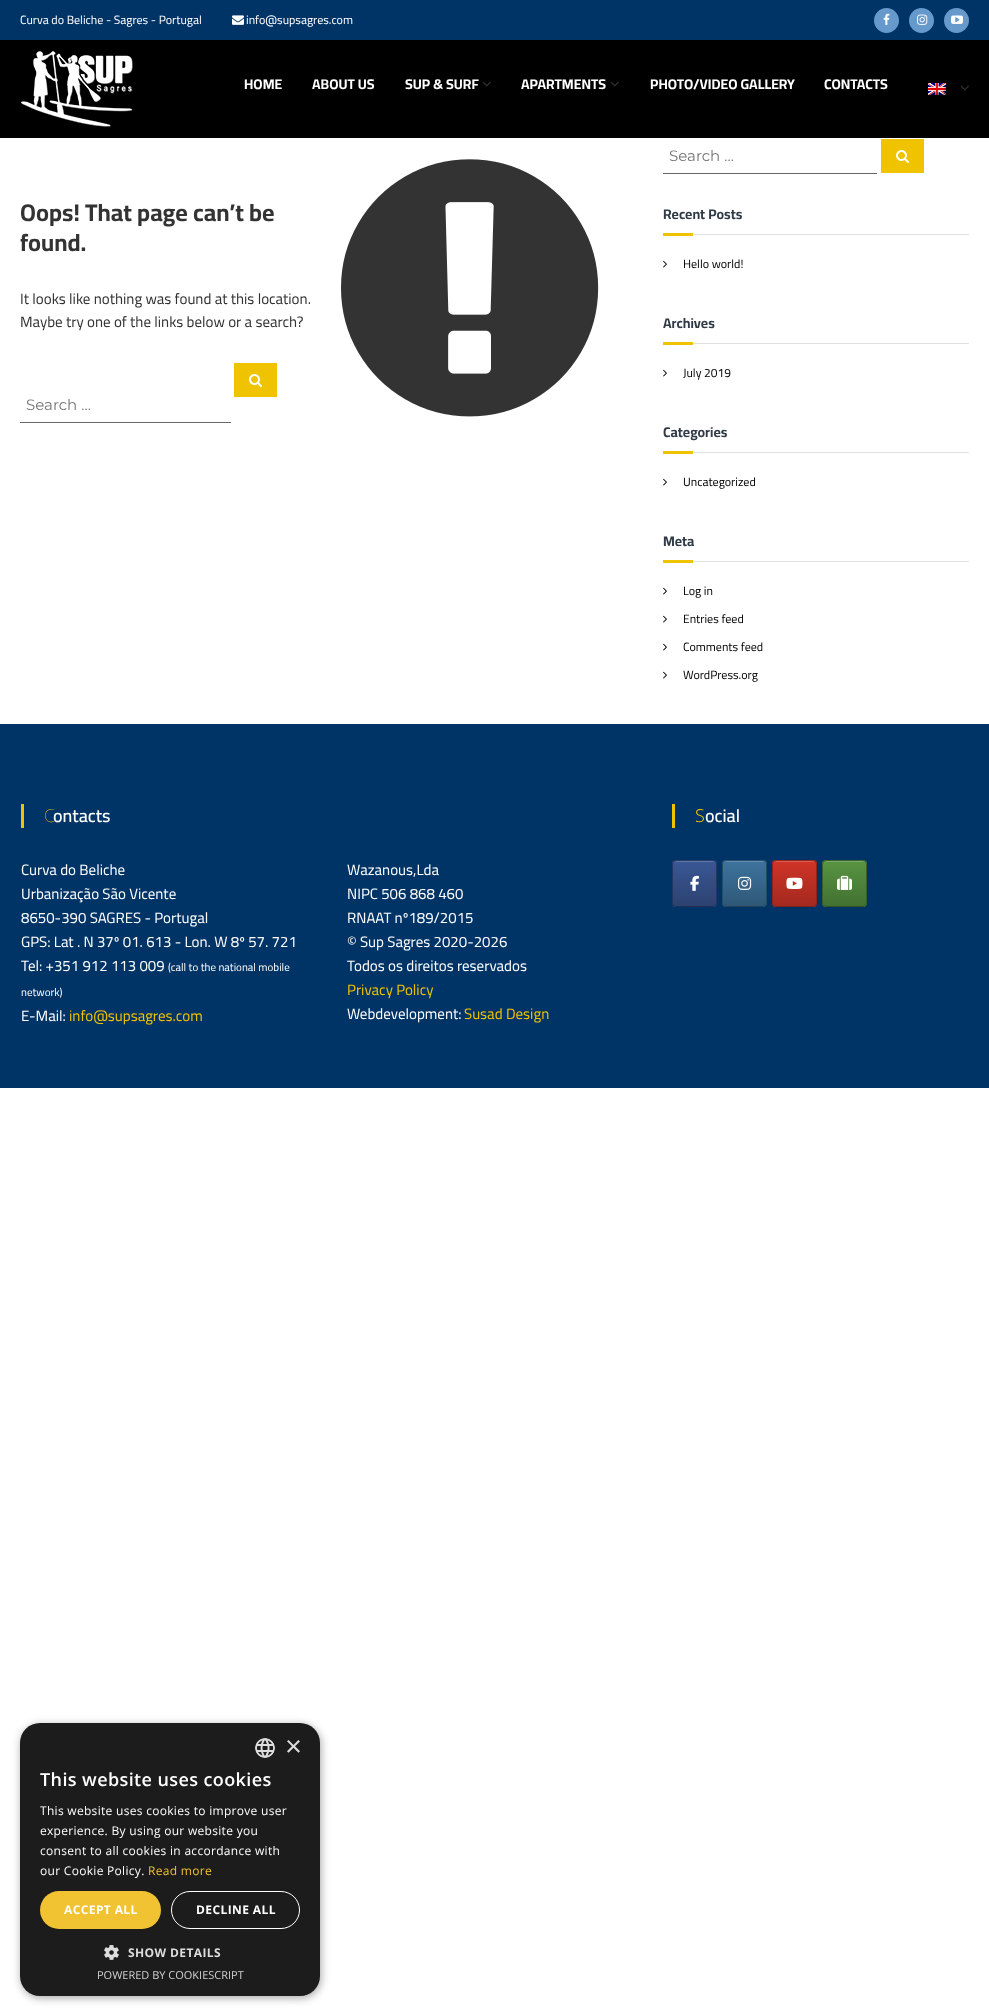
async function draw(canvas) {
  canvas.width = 989
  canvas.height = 2016
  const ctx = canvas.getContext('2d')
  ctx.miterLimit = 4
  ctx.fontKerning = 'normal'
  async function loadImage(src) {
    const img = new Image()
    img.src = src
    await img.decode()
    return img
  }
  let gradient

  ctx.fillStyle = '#fff'
  ctx.fillRect(0, 0, 989, 2016)
  ctx.fillStyle = '#036'
  ctx.fillRect(0, 0, 989, 40)
  ctx.font = '12px Cairo'
  ctx.fillStyle = '#fff'
  ctx.fillText('Curva do Beliche - Sagres - Portugal', 20, 24)
  ctx.drawImage(await loadImage('image0.png'), 232, 15, 12, 10)
  ctx.fillText('info@supsagres.com', 246, 24)
  ctx.fillStyle = '#69c'
  ctx.beginPath()
  ctx.arc(886.5, 20.5, 12.5, 0, 2 * Math.PI)
  ctx.fill()
  ctx.drawImage(await loadImage('image1.png'), 883, 13, 7, 12)
  ctx.beginPath()
  ctx.arc(921.5, 20.5, 12.5, 0, 2 * Math.PI)
  ctx.fill()
  ctx.drawImage(await loadImage('image2.png'), 917, 14, 11, 11)
  ctx.beginPath()
  ctx.arc(956.5, 20.5, 12.5, 0, 2 * Math.PI)
  ctx.fill()
  ctx.drawImage(await loadImage('image3.png'), 951, 15, 12, 9)
  ctx.fillStyle = '#000'
  ctx.fillRect(0, 40, 989, 98)
  ctx.drawImage(await loadImage('image4.png'), 21, 51, 112, 76)
  ctx.font = 'bold 14px Cairo'
  ctx.fillStyle = '#fff'
  ctx.fillText('HOME', 244, 89)
  ctx.fillText('ABOUT US', 312, 89)
  ctx.fillText('SUP & SURF', 405, 89)
  ctx.drawImage(await loadImage('image5.png'), 482, 81, 9, 6)
  ctx.fillText('APARTMENTS', 521, 89)
  ctx.drawImage(await loadImage('image5.png'), 610, 81, 9, 6)
  ctx.fillText('PHOTO/VIDEO GALLERY', 650, 89)
  ctx.fillText('CONTACTS', 824, 89)
  ctx.drawImage(await loadImage('image6.png'), 928, 83, 18, 12)
  ctx.drawImage(await loadImage('image5.png'), 960, 85, 9, 6)
  ctx.font = 'bold 24px Cairo'
  ctx.fillStyle = '#333'
  ctx.fillText('Oops! That page can’t be', 20, 221)
  ctx.fillText('found.', 20, 251)
  ctx.font = '15px Cairo'
  ctx.fillText('It looks like nothing was found at this location.', 20, 304)
  ctx.fillText('Maybe try one of the links below or a search?', 20, 327)
  ctx.fillStyle = '#efc300'
  ctx.fillRect(234, 363, 43, 34)
  ctx.drawImage(await loadImage('image7.png'), 249, 374, 13, 13)
  ctx.fillStyle = '#666'
  ctx.fillRect(20, 422, 211, 1)
  ctx.font = '15px Montserrat'
  ctx.fillStyle = '#757575'
  ctx.fillText('Search …', 26, 410)
  ctx.drawImage(await loadImage('image8.png'), 341, 159, 258, 258)
  ctx.fillStyle = '#666'
  ctx.fillRect(663, 173, 214, 1)
  ctx.fillStyle = '#757575'
  ctx.fillText('Search …', 669, 161)
  ctx.fillStyle = '#efc300'
  ctx.fillRect(881, 139, 43, 34)
  ctx.drawImage(await loadImage('image7.png'), 896, 150, 13, 13)
  ctx.font = 'bold 14px Cairo'
  ctx.fillStyle = '#313b48'
  ctx.fillText('Recent Posts', 663, 219)
  ctx.fillStyle = '#efc300'
  ctx.fillRect(663, 233, 30, 3)
  ctx.fillStyle = '#e1e1e1'
  ctx.fillRect(693, 234, 276, 1)
  ctx.drawImage(await loadImage('image9.png'), 663, 260, 4, 8)
  ctx.font = '12px Cairo'
  ctx.fillStyle = '#000'
  ctx.fillText('Hello world!', 683, 268)
  ctx.font = 'bold 14px Cairo'
  ctx.fillStyle = '#313b48'
  ctx.fillText('Archives', 663, 328)
  ctx.fillStyle = '#efc300'
  ctx.fillRect(663, 342, 30, 3)
  ctx.fillStyle = '#e1e1e1'
  ctx.fillRect(693, 343, 276, 1)
  ctx.drawImage(await loadImage('image9.png'), 663, 369, 4, 8)
  ctx.font = '12px Cairo'
  ctx.fillStyle = '#000'
  ctx.fillText('July 2019', 683, 377)
  ctx.font = 'bold 14px Cairo'
  ctx.fillStyle = '#313b48'
  ctx.fillText('Categories', 663, 437)
  ctx.fillStyle = '#efc300'
  ctx.fillRect(663, 451, 30, 3)
  ctx.fillStyle = '#e1e1e1'
  ctx.fillRect(693, 452, 276, 1)
  ctx.drawImage(await loadImage('image9.png'), 663, 478, 4, 8)
  ctx.font = '12px Cairo'
  ctx.fillStyle = '#000'
  ctx.fillText('Uncategorized', 683, 486)
  ctx.font = 'bold 14px Cairo'
  ctx.fillStyle = '#313b48'
  ctx.fillText('Meta', 663, 546)
  ctx.fillStyle = '#efc300'
  ctx.fillRect(663, 560, 30, 3)
  ctx.fillStyle = '#e1e1e1'
  ctx.fillRect(693, 561, 276, 1)
  ctx.drawImage(await loadImage('image9.png'), 663, 587, 4, 8)
  ctx.font = '12px Cairo'
  ctx.fillStyle = '#000'
  ctx.fillText('Log in', 683, 595)
  ctx.drawImage(await loadImage('image9.png'), 663, 615, 4, 8)
  ctx.fillText('Entries feed', 683, 623)
  ctx.drawImage(await loadImage('image9.png'), 663, 643, 4, 8)
  ctx.fillText('Comments feed', 683, 651)
  ctx.drawImage(await loadImage('image9.png'), 663, 671, 4, 8)
  ctx.fillText('WordPress.org', 683, 679)
  ctx.fillStyle = '#036'
  ctx.fillRect(0, 724, 989, 364)
  ctx.fillStyle = '#efc300'
  ctx.fillRect(21, 804, 3, 24)
  ctx.font = '100 18px Noto Sans'
  ctx.fillText('C', 44, 822)
  ctx.font = '600 18px Cairo'
  ctx.fillStyle = '#fff'
  ctx.fillText('ontacts', 53, 822)
  ctx.font = '15px Cairo'
  ctx.fillText('Curva do Beliche', 21, 875)
  ctx.fillText('Urbanização São Vicente', 21, 899)
  ctx.fillText('8650-390 SAGRES - Portugal', 21, 923)
  ctx.fillText('GPS: Lat . N 37º 01. 613 - Lon. W 8º 57. 721', 21, 947)
  ctx.fillText('Tel: +351 912 113 009', 21, 971)
  ctx.font = '11px Cairo'
  ctx.fillText('(call to the national mobile', 168, 971)
  ctx.fillText('network)', 21, 996)
  ctx.font = '15px Cairo'
  ctx.fillText('E-Mail:', 21, 1021)
  ctx.fillStyle = '#efc300'
  ctx.fillText('info@supsagres.com', 69, 1021)
  ctx.fillRect(672, 804, 3, 24)
  ctx.font = '300 18px Noto Sans'
  ctx.fillText('S', 695, 822)
  ctx.font = '600 18px Cairo'
  ctx.fillStyle = '#fff'
  ctx.fillText('ocial', 705, 822)
  ctx.save()
  ctx.beginPath()
  ctx.roundRect(672, 860, 45, 47, 4)
  ctx.clip()
  gradient = ctx.createLinearGradient(673, 861, 673, 816)
  gradient.addColorStop(0, '#2c4270')
  gradient.addColorStop(1, '#3a5795')
  ctx.fillStyle = gradient
  ctx.fillRect(672, 860, 45, 1)
  gradient = ctx.createLinearGradient(673, 906, 673, 861)
  gradient.addColorStop(0, '#2c4270')
  gradient.addColorStop(1, '#3a5795')
  ctx.fillStyle = gradient
  ctx.fillRect(672, 861, 45, 45)
  gradient = ctx.createLinearGradient(673, 951, 673, 906)
  gradient.addColorStop(0, '#2c4270')
  gradient.addColorStop(1, '#3a5795')
  ctx.fillStyle = gradient
  ctx.fillRect(672, 906, 45, 1)
  ctx.restore()
  ctx.fillStyle = '#6179aa'
  ctx.beginPath()
  ctx.moveTo(676, 862)
  ctx.lineTo(713, 862)
  ctx.bezierCurveTo(715, 862, 716, 863, 716, 865)
  ctx.bezierCurveTo(716, 860, 711, 861, 707, 861)
  ctx.lineTo(682, 861)
  ctx.bezierCurveTo(678, 861, 673, 860, 673, 865)
  ctx.bezierCurveTo(673, 863, 674, 862, 676, 862)
  ctx.closePath()
  ctx.fill()
  ctx.beginPath()
  ctx.moveTo(673.5, 861.5)
  ctx.lineTo(676, 860.5)
  ctx.lineTo(713, 860.5)
  ctx.lineTo(715.5, 861.5)
  ctx.strokeStyle = '#273b65'
  ctx.stroke()
  ctx.beginPath()
  ctx.moveTo(715.5, 861.5)
  ctx.lineTo(716.5, 864)
  ctx.lineTo(716.5, 903)
  ctx.lineTo(715.5, 905.5)
  ctx.strokeStyle = '#25375e'
  ctx.stroke()
  ctx.beginPath()
  ctx.moveTo(715.5, 905.5)
  ctx.lineTo(713, 906.5)
  ctx.lineTo(676, 906.5)
  ctx.lineTo(673.5, 905.5)
  ctx.strokeStyle = '#203053'
  ctx.stroke()
  ctx.beginPath()
  ctx.moveTo(673.5, 905.5)
  ctx.lineTo(672.5, 903)
  ctx.lineTo(672.5, 864)
  ctx.lineTo(673.5, 861.5)
  ctx.strokeStyle = '#25375e'
  ctx.stroke()
  ctx.drawImage(await loadImage('image10.png'), 690, 875, 9, 16)
  ctx.save()
  ctx.beginPath()
  ctx.roundRect(722, 860, 45, 47, 4)
  ctx.clip()
  gradient = ctx.createLinearGradient(723, 861, 723, 816)
  gradient.addColorStop(0, '#2f5877')
  gradient.addColorStop(1, '#3d739c')
  ctx.fillStyle = gradient
  ctx.fillRect(722, 860, 45, 1)
  gradient = ctx.createLinearGradient(723, 906, 723, 861)
  gradient.addColorStop(0, '#2f5877')
  gradient.addColorStop(1, '#3d739c')
  ctx.fillStyle = gradient
  ctx.fillRect(722, 861, 45, 45)
  gradient = ctx.createLinearGradient(723, 951, 723, 906)
  gradient.addColorStop(0, '#2f5877')
  gradient.addColorStop(1, '#3d739c')
  ctx.fillStyle = gradient
  ctx.fillRect(722, 906, 45, 1)
  ctx.restore()
  ctx.fillStyle = '#648fb0'
  ctx.beginPath()
  ctx.moveTo(726, 862)
  ctx.lineTo(763, 862)
  ctx.bezierCurveTo(765, 862, 766, 863, 766, 865)
  ctx.bezierCurveTo(766, 860, 761, 861, 757, 861)
  ctx.lineTo(732, 861)
  ctx.bezierCurveTo(728, 861, 723, 860, 723, 865)
  ctx.bezierCurveTo(723, 863, 724, 862, 726, 862)
  ctx.closePath()
  ctx.fill()
  ctx.beginPath()
  ctx.moveTo(723.5, 861.5)
  ctx.lineTo(726, 860.5)
  ctx.lineTo(763, 860.5)
  ctx.lineTo(765.5, 861.5)
  ctx.strokeStyle = '#2a506c'
  ctx.stroke()
  ctx.beginPath()
  ctx.moveTo(765.5, 861.5)
  ctx.lineTo(766.5, 864)
  ctx.lineTo(766.5, 903)
  ctx.lineTo(765.5, 905.5)
  ctx.strokeStyle = '#274a65'
  ctx.stroke()
  ctx.beginPath()
  ctx.moveTo(765.5, 905.5)
  ctx.lineTo(763, 906.5)
  ctx.lineTo(726, 906.5)
  ctx.lineTo(723.5, 905.5)
  ctx.strokeStyle = '#23425a'
  ctx.stroke()
  ctx.beginPath()
  ctx.moveTo(723.5, 905.5)
  ctx.lineTo(722.5, 903)
  ctx.lineTo(722.5, 864)
  ctx.lineTo(723.5, 861.5)
  ctx.strokeStyle = '#274a65'
  ctx.stroke()
  ctx.drawImage(await loadImage('image11.png'), 738, 876, 14, 14)
  ctx.save()
  ctx.beginPath()
  ctx.roundRect(772, 860, 45, 47, 4)
  ctx.clip()
  gradient = ctx.createLinearGradient(773, 861, 773, 816)
  gradient.addColorStop(0, '#a4291f')
  gradient.addColorStop(1, '#cf3427')
  ctx.fillStyle = gradient
  ctx.fillRect(772, 860, 45, 1)
  gradient = ctx.createLinearGradient(773, 906, 773, 861)
  gradient.addColorStop(0, '#a4291f')
  gradient.addColorStop(1, '#cf3427')
  ctx.fillStyle = gradient
  ctx.fillRect(772, 861, 45, 45)
  gradient = ctx.createLinearGradient(773, 951, 773, 906)
  gradient.addColorStop(0, '#a4291f')
  gradient.addColorStop(1, '#cf3427')
  ctx.fillStyle = gradient
  ctx.fillRect(772, 906, 45, 1)
  ctx.restore()
  ctx.fillStyle = '#d95d52'
  ctx.beginPath()
  ctx.moveTo(776, 862)
  ctx.lineTo(813, 862)
  ctx.bezierCurveTo(815, 862, 816, 863, 816, 865)
  ctx.bezierCurveTo(816, 860, 811, 861, 807, 861)
  ctx.lineTo(782, 861)
  ctx.bezierCurveTo(778, 861, 773, 860, 773, 865)
  ctx.bezierCurveTo(773, 863, 774, 862, 776, 862)
  ctx.closePath()
  ctx.fill()
  ctx.beginPath()
  ctx.moveTo(773.5, 861.5)
  ctx.lineTo(776, 860.5)
  ctx.lineTo(813, 860.5)
  ctx.lineTo(815.5, 861.5)
  ctx.strokeStyle = '#97261c'
  ctx.stroke()
  ctx.beginPath()
  ctx.moveTo(815.5, 861.5)
  ctx.lineTo(816.5, 864)
  ctx.lineTo(816.5, 903)
  ctx.lineTo(815.5, 905.5)
  ctx.strokeStyle = '#8f241b'
  ctx.stroke()
  ctx.beginPath()
  ctx.moveTo(815.5, 905.5)
  ctx.lineTo(813, 906.5)
  ctx.lineTo(776, 906.5)
  ctx.lineTo(773.5, 905.5)
  ctx.strokeStyle = '#822118'
  ctx.stroke()
  ctx.beginPath()
  ctx.moveTo(773.5, 905.5)
  ctx.lineTo(772.5, 903)
  ctx.lineTo(772.5, 864)
  ctx.lineTo(773.5, 861.5)
  ctx.strokeStyle = '#8f241b'
  ctx.stroke()
  ctx.drawImage(await loadImage('image12.png'), 786, 877, 17, 12)
  ctx.save()
  ctx.beginPath()
  ctx.roundRect(822, 860, 45, 47, 4)
  ctx.clip()
  gradient = ctx.createLinearGradient(823, 861, 823, 816)
  gradient.addColorStop(0, '#437132')
  gradient.addColorStop(1, '#589442')
  ctx.fillStyle = gradient
  ctx.fillRect(822, 860, 45, 1)
  gradient = ctx.createLinearGradient(823, 906, 823, 861)
  gradient.addColorStop(0, '#437132')
  gradient.addColorStop(1, '#589442')
  ctx.fillStyle = gradient
  ctx.fillRect(822, 861, 45, 45)
  gradient = ctx.createLinearGradient(823, 951, 823, 906)
  gradient.addColorStop(0, '#437132')
  gradient.addColorStop(1, '#589442')
  ctx.fillStyle = gradient
  ctx.fillRect(822, 906, 45, 1)
  ctx.restore()
  ctx.fillStyle = '#79a968'
  ctx.beginPath()
  ctx.moveTo(826, 862)
  ctx.lineTo(863, 862)
  ctx.bezierCurveTo(865, 862, 866, 863, 866, 865)
  ctx.bezierCurveTo(866, 860, 861, 861, 857, 861)
  ctx.lineTo(832, 861)
  ctx.bezierCurveTo(828, 861, 823, 860, 823, 865)
  ctx.bezierCurveTo(823, 863, 824, 862, 826, 862)
  ctx.closePath()
  ctx.fill()
  ctx.beginPath()
  ctx.moveTo(823.5, 861.5)
  ctx.lineTo(826, 860.5)
  ctx.lineTo(863, 860.5)
  ctx.lineTo(865.5, 861.5)
  ctx.strokeStyle = '#3d662e'
  ctx.stroke()
  ctx.beginPath()
  ctx.moveTo(865.5, 861.5)
  ctx.lineTo(866.5, 864)
  ctx.lineTo(866.5, 903)
  ctx.lineTo(865.5, 905.5)
  ctx.strokeStyle = '#395f2a'
  ctx.stroke()
  ctx.beginPath()
  ctx.moveTo(865.5, 905.5)
  ctx.lineTo(863, 906.5)
  ctx.lineTo(826, 906.5)
  ctx.lineTo(823.5, 905.5)
  ctx.strokeStyle = '#325526'
  ctx.stroke()
  ctx.beginPath()
  ctx.moveTo(823.5, 905.5)
  ctx.lineTo(822.5, 903)
  ctx.lineTo(822.5, 864)
  ctx.lineTo(823.5, 861.5)
  ctx.strokeStyle = '#395f2a'
  ctx.stroke()
  ctx.drawImage(await loadImage('image13.png'), 837, 875, 15, 15)
  ctx.font = '15px Cairo'
  ctx.fillStyle = '#fff'
  ctx.fillText('Wazanous,Lda', 347, 875)
  ctx.fillText('NIPC 506 868 460', 347, 899)
  ctx.fillText('RNAAT nº189/2015', 347, 923)
  ctx.fillText('© Sup Sagres 2020-2026', 347, 947)
  ctx.fillText('Todos os direitos reservados', 347, 971)
  ctx.fillStyle = '#efc300'
  ctx.fillText('Privacy Policy', 347, 995)
  ctx.fillStyle = '#fff'
  ctx.fillText('Webdevelopment:', 347, 1019)
  ctx.fillStyle = '#efc300'
  ctx.fillText('Susad Design', 464, 1019)
  ctx.fillStyle = '#00000059'
  ctx.filter = 'blur(4px)'
  ctx.beginPath()
  ctx.roundRect(21, 1725, 300, 273, 20)
  ctx.fill()
  ctx.filter = 'none'
  ctx.fillStyle = '#1c1c1c'
  ctx.beginPath()
  ctx.roundRect(20, 1723, 300, 273, 20)
  ctx.fill()
  ctx.drawImage(await loadImage('image14.png'), 255, 1738, 20, 20)
  ctx.font = '29px Liberation Sans'
  ctx.fillStyle = '#ddd'
  ctx.fillText('×', 285, 1756)
  ctx.letterSpacing = '0.4px'
  ctx.font = '600 18px Open Sans'
  ctx.fillStyle = '#fff'
  ctx.fillText('This website uses cookies', 40, 1786)
  ctx.letterSpacing = '0.3px'
  ctx.font = '12px Open Sans'
  ctx.fillText('This website uses cookies to improve user', 40, 1815)
  ctx.fillText('experience. By using our website you', 40, 1835)
  ctx.fillText('consent to all cookies in accordance with', 40, 1855)
  ctx.fillText('our Cookie Policy.', 40, 1875)
  ctx.fillStyle = '#f1c232'
  ctx.fillText('Read more', 148, 1875)
  ctx.beginPath()
  ctx.roundRect(40, 1891, 121, 38, 19)
  ctx.fill()
  ctx.letterSpacing = '0.4px'
  ctx.font = 'bold 12px Open Sans'
  ctx.fillStyle = '#fff'
  ctx.fillText('ACCEPT ALL', 64, 1914)
  ctx.beginPath()
  ctx.roundRect(171.5, 1891.5, 128, 37, 18.5)
  ctx.strokeStyle = '#fff'
  ctx.stroke()
  ctx.fillText('DECLINE ALL', 196, 1914)
  ctx.drawImage(await loadImage('image15.png'), 104, 1945, 15, 15)
  ctx.fillStyle = '#ddd'
  ctx.fillText('SHOW DETAILS', 128, 1957)
  ctx.letterSpacing = '0px'
  ctx.font = '11px Open Sans'
  ctx.fillStyle = '#d2d2d2'
  ctx.fillText('POWERED BY COOKIESCRIPT', 97, 1979)
}

draw(document.querySelector('canvas'))
